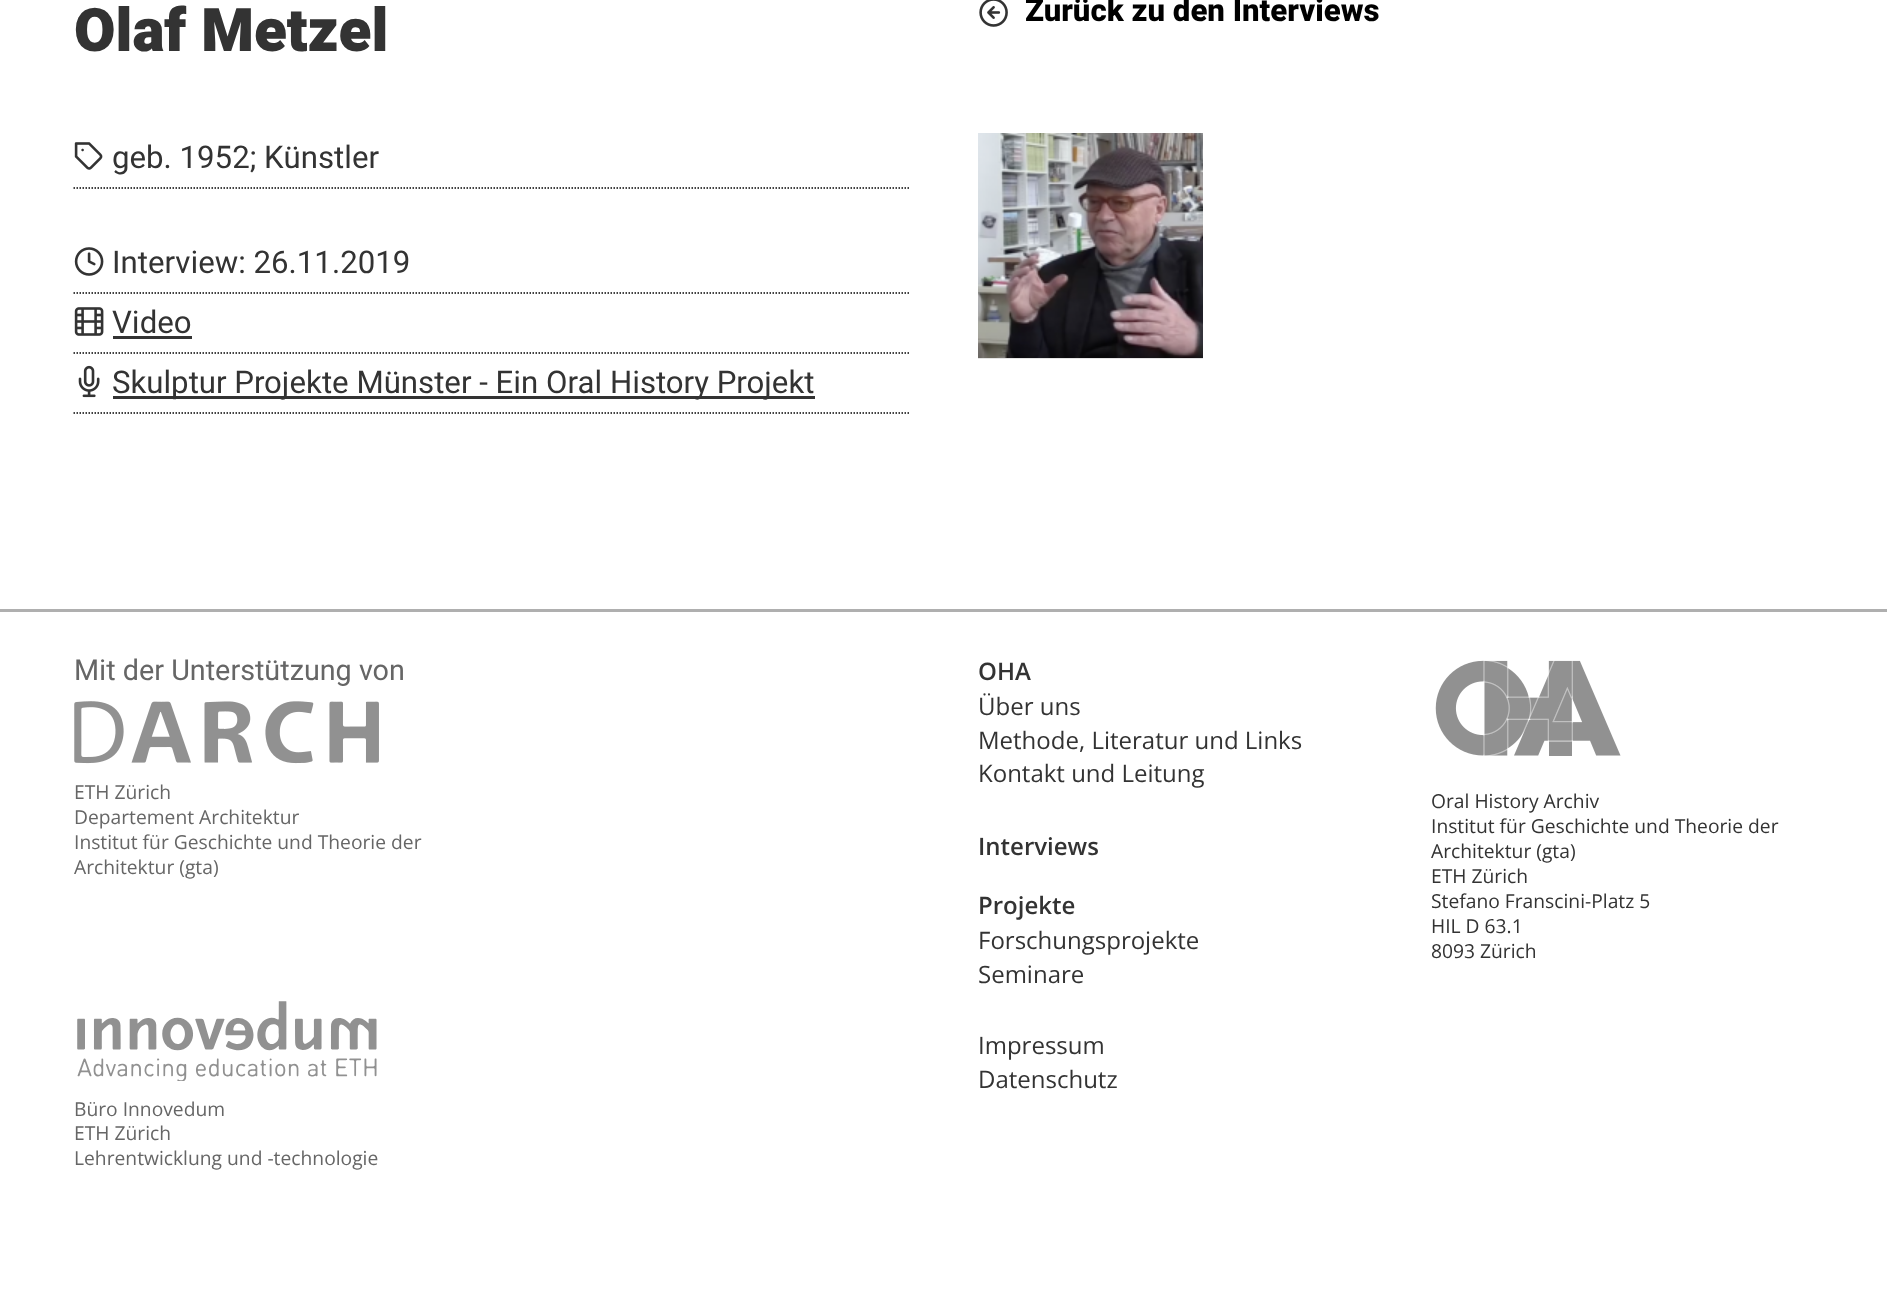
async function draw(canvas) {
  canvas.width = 1887
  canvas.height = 1296
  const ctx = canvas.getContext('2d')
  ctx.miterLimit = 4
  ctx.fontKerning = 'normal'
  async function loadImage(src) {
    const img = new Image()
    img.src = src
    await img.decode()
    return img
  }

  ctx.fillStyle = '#fff'
  ctx.fillRect(0, 0, 1887, 1296)
  ctx.font = '900 60px Heebo'
  ctx.fillStyle = '#333'
  ctx.fillText('Olaf Metzel', 74, 51)
  ctx.beginPath()
  ctx.moveTo(73.5, 188)
  ctx.lineTo(909, 188)
  ctx.strokeStyle = '#000'
  ctx.lineWidth = 1.5
  ctx.setLineDash([1.5, 1.5])
  ctx.stroke()
  ctx.drawImage(await loadImage('image0.png'), 74, 142, 29, 28)
  ctx.font = '31.2px Heebo'
  ctx.fillText('geb. 1952; Künstler', 112, 168)
  ctx.beginPath()
  ctx.moveTo(73.5, 293)
  ctx.lineTo(909, 293)
  ctx.stroke()
  ctx.drawImage(await loadImage('image1.png'), 74, 247, 30, 29)
  ctx.fillText('Interview: 26.11.2019', 112, 273)
  ctx.beginPath()
  ctx.moveTo(73.5, 353)
  ctx.lineTo(909, 353)
  ctx.stroke()
  ctx.drawImage(await loadImage('image2.png'), 74, 307, 30, 29)
  ctx.fillText('Video', 112, 333)
  ctx.fillRect(113, 336, 79, 3)
  ctx.beginPath()
  ctx.moveTo(73.5, 413)
  ctx.lineTo(909, 413)
  ctx.stroke()
  ctx.drawImage(await loadImage('image3.png'), 78, 365, 22, 33)
  ctx.fillRect(113, 396, 702, 3)
  ctx.fillText('Skulptur Projekte Münster - Ein Oral History Projekt', 112, 393)
  ctx.drawImage(await loadImage('image4.png'), 979, 0, 29, 27)
  ctx.font = '800 31.2px Heebo'
  ctx.fillStyle = '#000'
  ctx.fillText('Zurück zu den Interviews', 1025, 21)
  ctx.fillStyle = '#e4e4e4'
  ctx.fillRect(978, 358, 225, 1)
  ctx.drawImage(await loadImage('image5.png'), 978, 133, 225, 225)
  ctx.fillStyle = '#afafaf'
  ctx.fillRect(0, 609, 1887, 3)
  ctx.font = '28.75px Heebo'
  ctx.fillStyle = '#666'
  ctx.fillText('Mit der Unterstützung von', 74, 680)
  ctx.drawImage(await loadImage('image6.png'), 74, 701, 305, 63)
  ctx.font = '19.25px Open Sans'
  ctx.fillText('ETH Zürich', 74, 799)
  ctx.fillText('Departement Architektur', 74, 824)
  ctx.fillText('Institut für Geschichte und Theorie der', 74, 849)
  ctx.fillText('Architektur (gta)', 74, 874)
  ctx.drawImage(await loadImage('image7.png'), 77, 1001, 300, 80)
  ctx.fillText('Büro Innovedum', 74, 1116)
  ctx.fillText('ETH Zürich', 74, 1140)
  ctx.fillText('Lehrentwicklung und -technologie', 74, 1165)
  ctx.font = '600 24px Open Sans'
  ctx.fillStyle = '#333'
  ctx.fillText('OHA', 978, 680)
  ctx.font = '24px Open Sans'
  ctx.fillText('Über uns', 978, 715)
  ctx.fillText('Methode, Literatur und Links', 978, 749)
  ctx.fillText('Kontakt und Leitung', 978, 782)
  ctx.font = '600 24px Open Sans'
  ctx.fillText('Interviews', 978, 855)
  ctx.fillText('Projekte', 978, 914)
  ctx.font = '24px Open Sans'
  ctx.fillText('Forschungsprojekte', 978, 949)
  ctx.fillText('Seminare', 978, 983)
  ctx.fillText('Impressum', 978, 1054)
  ctx.fillText('Datenschutz', 978, 1088)
  ctx.drawImage(await loadImage('image8.png'), 1435, 660, 186, 96)
  ctx.font = '19.25px Open Sans'
  ctx.fillText('Oral History Archiv', 1431, 808)
  ctx.fillText('Institut für Geschichte und Theorie der', 1431, 833)
  ctx.fillText('Architektur (gta)', 1431, 858)
  ctx.fillText('ETH Zürich', 1431, 883)
  ctx.fillText('Stefano Franscini-Platz 5', 1431, 908)
  ctx.fillText('HIL D 63.1', 1431, 933)
  ctx.fillText('8093 Zürich', 1431, 958)
}

draw(document.querySelector('canvas'))
